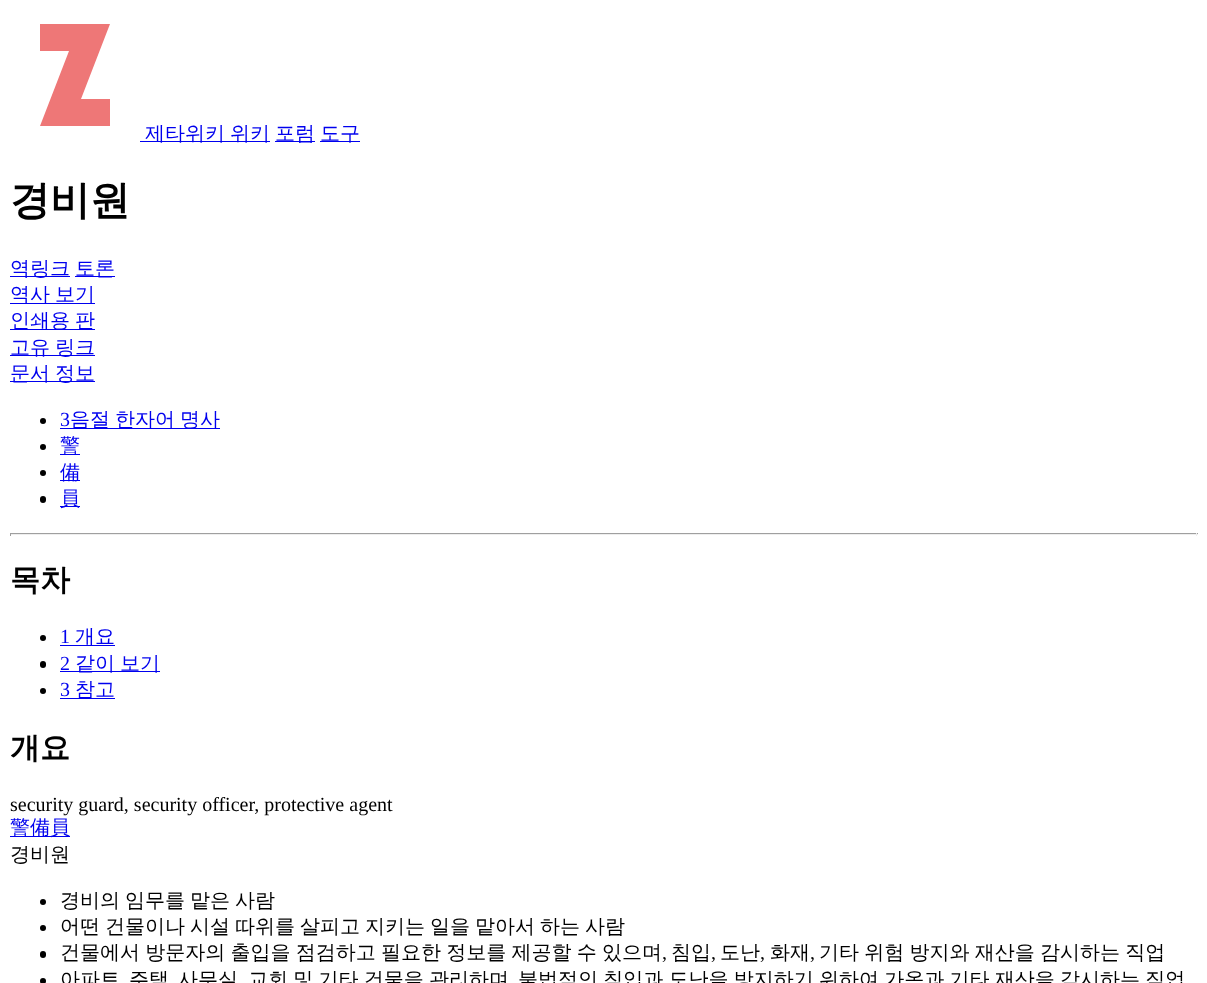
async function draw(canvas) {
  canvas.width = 1207
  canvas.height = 983
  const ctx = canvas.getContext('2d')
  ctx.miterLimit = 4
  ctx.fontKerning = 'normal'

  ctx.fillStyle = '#fff'
  ctx.fillRect(0, 0, 1207, 983)
  ctx.fillStyle = '#00e'
  ctx.fillRect(140, 141, 130, 1)
  ctx.font = '500 20px WenQuanYi Zen Hei'
  ctx.fillText('제타위키', 145, 140)
  ctx.fillStyle = '#e77'
  ctx.beginPath()
  ctx.moveTo(40, 24)
  ctx.lineTo(110, 24)
  ctx.lineTo(81, 99)
  ctx.lineTo(110, 99)
  ctx.lineTo(110, 126)
  ctx.lineTo(40, 126)
  ctx.lineTo(69, 51)
  ctx.lineTo(40, 51)
  ctx.closePath()
  ctx.fill()
  ctx.fillStyle = '#00e'
  ctx.fillText('위키', 230, 140)
  ctx.fillRect(275, 141, 40, 1)
  ctx.fillText('포럼', 275, 140)
  ctx.fillRect(320, 141, 40, 1)
  ctx.fillText('도구', 320, 140)
  ctx.font = 'bold 40px WenQuanYi Zen Hei'
  ctx.fillStyle = '#000'
  ctx.fillText('경비원', 10, 214)
  ctx.fillStyle = '#00e'
  ctx.fillRect(10, 276, 60, 1)
  ctx.font = '500 20px WenQuanYi Zen Hei'
  ctx.fillText('역링크', 10, 275)
  ctx.fillRect(75, 276, 40, 1)
  ctx.fillText('토론', 75, 275)
  ctx.fillRect(10, 303, 85, 1)
  ctx.wordSpacing = '-1px'
  ctx.fillText('역사 보기', 10, 301)
  ctx.fillRect(10, 329, 85, 1)
  ctx.fillText('인쇄용 판', 10, 327)
  ctx.fillRect(10, 355, 85, 1)
  ctx.fillText('고유 링크', 10, 354)
  ctx.fillRect(10, 381, 85, 1)
  ctx.fillText('문서 정보', 10, 380)
  ctx.fillStyle = '#000'
  ctx.beginPath()
  ctx.arc(43, 421, 3, 0, 2 * Math.PI)
  ctx.fill()
  ctx.wordSpacing = '0px'
  ctx.font = '20px Liberation Serif'
  ctx.fillStyle = '#00e'
  ctx.fillText('3', 60, 426)
  ctx.fillRect(60, 428, 160, 1)
  ctx.wordSpacing = '-1px'
  ctx.font = '500 20px WenQuanYi Zen Hei'
  ctx.fillText('음절 한자어 명사', 70, 426)
  ctx.fillStyle = '#000'
  ctx.beginPath()
  ctx.arc(43, 447, 3, 0, 2 * Math.PI)
  ctx.fill()
  ctx.fillStyle = '#00e'
  ctx.fillRect(60, 454, 20, 1)
  ctx.wordSpacing = '0px'
  ctx.fillText('警', 60, 452)
  ctx.fillStyle = '#000'
  ctx.beginPath()
  ctx.arc(43, 473, 3, 0, 2 * Math.PI)
  ctx.fill()
  ctx.fillStyle = '#00e'
  ctx.fillRect(60, 480, 20, 1)
  ctx.fillText('備', 60, 479)
  ctx.fillStyle = '#000'
  ctx.beginPath()
  ctx.roundRect(40, 496, 6, 7, 3)
  ctx.fill()
  ctx.fillStyle = '#00e'
  ctx.fillRect(60, 506, 20, 1)
  ctx.fillText('員', 60, 505)
  ctx.fillStyle = '#9f9f9f'
  ctx.fillRect(10, 533, 1188, 1)
  ctx.fillStyle = '#eee'
  ctx.fillRect(1196, 533, 1, 3)
  ctx.fillRect(10, 534, 1188, 1)
  ctx.fillStyle = '#9f9f9f'
  ctx.fillRect(10, 533, 1, 3)
  ctx.font = 'bold 30px WenQuanYi Zen Hei'
  ctx.fillStyle = '#000'
  ctx.fillText('목차', 10, 590)
  ctx.beginPath()
  ctx.arc(43, 638, 3, 0, 2 * Math.PI)
  ctx.fill()
  ctx.font = '20px Liberation Serif'
  ctx.fillStyle = '#00e'
  ctx.fillText('1', 60, 643)
  ctx.fillRect(60, 645, 55, 1)
  ctx.font = '500 20px WenQuanYi Zen Hei'
  ctx.fillText('개요', 75, 643)
  ctx.fillStyle = '#000'
  ctx.beginPath()
  ctx.roundRect(40, 661, 6, 7, 3)
  ctx.fill()
  ctx.font = '20px Liberation Serif'
  ctx.fillStyle = '#00e'
  ctx.fillText('2', 60, 670)
  ctx.fillRect(60, 671, 100, 1)
  ctx.wordSpacing = '-1px'
  ctx.font = '500 20px WenQuanYi Zen Hei'
  ctx.fillText('같이 보기', 75, 670)
  ctx.fillStyle = '#000'
  ctx.beginPath()
  ctx.arc(43, 691, 3, 0, 2 * Math.PI)
  ctx.fill()
  ctx.wordSpacing = '0px'
  ctx.font = '20px Liberation Serif'
  ctx.fillStyle = '#00e'
  ctx.fillText('3', 60, 696)
  ctx.fillRect(60, 698, 55, 1)
  ctx.font = '500 20px WenQuanYi Zen Hei'
  ctx.fillText('참고', 75, 696)
  ctx.font = 'bold 30px WenQuanYi Zen Hei'
  ctx.fillStyle = '#000'
  ctx.fillText('개요', 10, 758)
  ctx.font = '20px Liberation Serif'
  ctx.fillText('security guard, security officer, protective agent', 10, 811)
  ctx.fillStyle = '#00e'
  ctx.fillRect(10, 836, 60, 1)
  ctx.font = '500 20px WenQuanYi Zen Hei'
  ctx.fillText('警備員', 10, 834)
  ctx.fillStyle = '#000'
  ctx.fillText('경비원', 10, 861)
  ctx.beginPath()
  ctx.arc(43, 902, 3, 0, 2 * Math.PI)
  ctx.fill()
  ctx.wordSpacing = '-1px'
  ctx.fillText('경비의 임무를 맡은 사람', 60, 907)
  ctx.beginPath()
  ctx.arc(43, 928, 3, 0, 2 * Math.PI)
  ctx.fill()
  ctx.fillText('어떤 건물이나 시설 따위를 살피고 지키는 일을 맡아서 하는 사람', 60, 933)
  ctx.beginPath()
  ctx.roundRect(40, 951, 6, 7, 3)
  ctx.fill()
  ctx.wordSpacing = '-0.75px'
  ctx.fillText('건물에서 방문자의 출입을 점검하고 필요한 정보를 제공할 수 있으며', 60, 959)
  ctx.wordSpacing = '0px'
  ctx.fillText('침입', 671, 959)
  ctx.fillText('도난', 720, 959)
  ctx.fillText('화재', 770, 959)
  ctx.wordSpacing = '-0.75px'
  ctx.fillText('기타 위험 방지와 재산을 감시하는 직업', 819, 959)
  ctx.wordSpacing = '0px'
  ctx.font = '20px Liberation Serif'
  ctx.fillText(',', 662, 959)
  ctx.fillText(',', 711, 959)
  ctx.fillText(',', 760, 959)
  ctx.fillText(',', 810, 959)
  ctx.beginPath()
  ctx.arc(43, 981, 3, 0, 2 * Math.PI)
  ctx.fill()
  ctx.font = '500 20px WenQuanYi Zen Hei'
  ctx.fillText('아파트', 60, 986)
  ctx.fillText('주택', 129, 986)
  ctx.fillText('사무실', 178, 986)
  ctx.wordSpacing = '-0.75px'
  ctx.fillText('교회 및 기타 건물을 관리하며', 248, 986)
  ctx.fillText('불법적인 침입과 도난을 방지하기 위하여 가옥과 기타 재산을 감시하는 직업', 518, 986)
}

draw(document.querySelector('canvas'))
